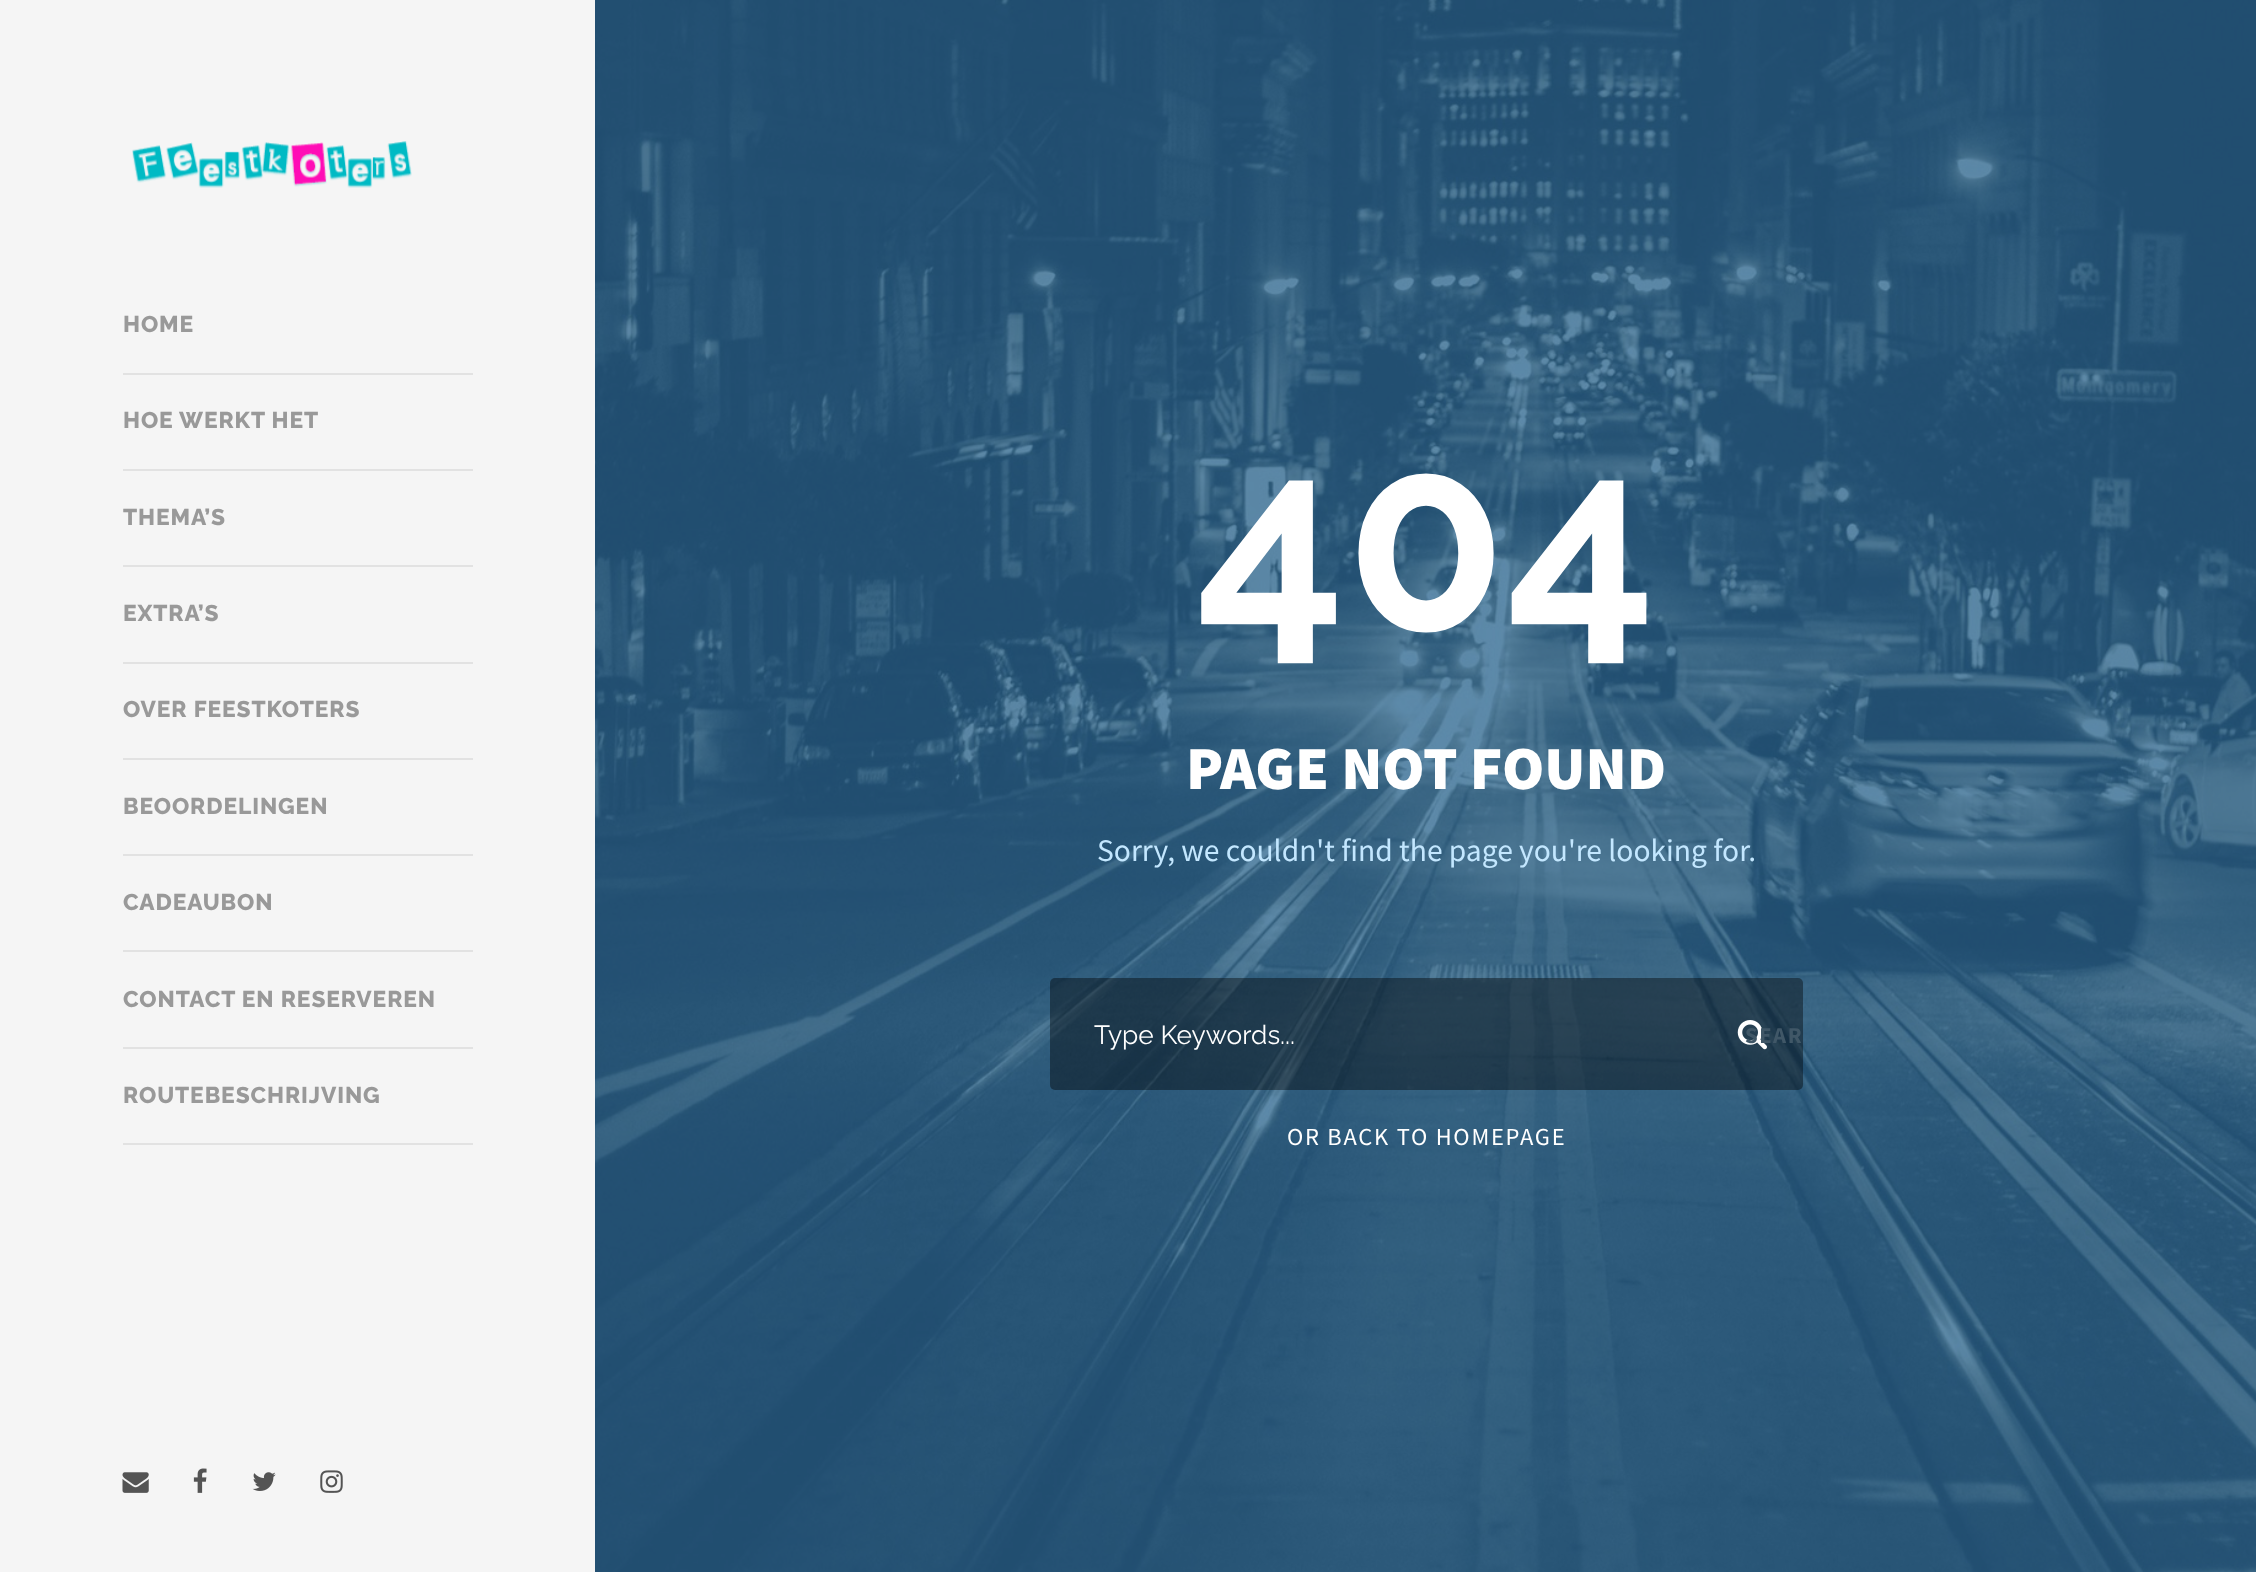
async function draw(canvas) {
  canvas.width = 2256
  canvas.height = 1572
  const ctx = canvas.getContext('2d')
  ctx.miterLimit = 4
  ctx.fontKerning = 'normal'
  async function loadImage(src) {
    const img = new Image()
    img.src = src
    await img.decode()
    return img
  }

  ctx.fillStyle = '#23618e'
  ctx.fillRect(0, 0, 2256, 1572)
  ctx.fillStyle = '#f5f5f5'
  ctx.fillRect(0, 0, 595, 1572)
  ctx.drawImage(await loadImage('image0.png'), 132, 141, 280, 47)
  ctx.fillStyle = '#e2e2e2'
  ctx.fillRect(123, 373, 350, 2)
  ctx.letterSpacing = '0.9px'
  ctx.font = '800 22.75px Raleway'
  ctx.fillStyle = '#999'
  ctx.fillText('HOME', 123, 332)
  ctx.fillStyle = '#e2e2e2'
  ctx.fillRect(123, 469, 350, 2)
  ctx.fillStyle = '#999'
  ctx.fillText('HOE WERKT HET', 123, 428)
  ctx.fillStyle = '#e2e2e2'
  ctx.fillRect(123, 565, 350, 2)
  ctx.fillStyle = '#999'
  ctx.fillText('THEMA’S', 123, 525)
  ctx.fillStyle = '#e2e2e2'
  ctx.fillRect(123, 662, 350, 2)
  ctx.fillStyle = '#999'
  ctx.fillText('EXTRA’S', 123, 621)
  ctx.fillStyle = '#e2e2e2'
  ctx.fillRect(123, 758, 350, 2)
  ctx.fillStyle = '#999'
  ctx.fillText('OVER FEESTKOTERS', 123, 717)
  ctx.fillStyle = '#e2e2e2'
  ctx.fillRect(123, 854, 350, 2)
  ctx.fillStyle = '#999'
  ctx.fillText('BEOORDELINGEN', 123, 814)
  ctx.fillStyle = '#e2e2e2'
  ctx.fillRect(123, 950, 350, 2)
  ctx.fillStyle = '#999'
  ctx.fillText('CADEAUBON', 123, 910)
  ctx.fillStyle = '#e2e2e2'
  ctx.fillRect(123, 1047, 350, 2)
  ctx.fillStyle = '#999'
  ctx.fillText('CONTACT EN RESERVEREN', 123, 1007)
  ctx.fillStyle = '#e2e2e2'
  ctx.fillRect(123, 1143, 350, 2)
  ctx.fillStyle = '#999'
  ctx.fillText('ROUTEBESCHRIJVING', 123, 1103)
  ctx.drawImage(await loadImage('image1.png'), 122, 1472, 27, 21)
  ctx.drawImage(await loadImage('image2.png'), 193, 1468, 14, 25)
  ctx.drawImage(await loadImage('image3.png'), 252, 1472, 24, 19)
  ctx.drawImage(await loadImage('image4.png'), 320, 1470, 23, 23)
  ctx.drawImage(await loadImage('image5.png'), 595, 0, 1661, 1572)
  ctx.letterSpacing = '0px'
  ctx.font = 'bold 262px Raleway'
  ctx.fillStyle = '#fff'
  ctx.fillText('404', 1196, 630)
  ctx.font = '900 61.25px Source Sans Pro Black'
  ctx.fillText('PAGE NOT FOUND', 1186, 789)
  ctx.font = '31.5px Source Sans Pro'
  ctx.fillStyle = '#c3e7ff'
  ctx.fillText('Sorry, we couldn\'t find the page you\'re looking for.', 1097, 861)
  ctx.fillStyle = '#00000066'
  ctx.beginPath()
  ctx.roundRect(1050, 978, 753, 112, 5)
  ctx.fill()
  ctx.font = '26.25px Raleway'
  ctx.fillStyle = '#fff'
  ctx.fillText('Type Keywords...', 1094, 1044)
  ctx.drawImage(await loadImage('image6.png'), 1737, 1020, 30, 30)
  ctx.letterSpacing = '1.5px'
  ctx.font = 'bold 22.75px Source Sans Pro'
  ctx.fillStyle = '#405767'
  ctx.fillText('SEAR', 1745, 1043)
  ctx.letterSpacing = '1.75px'
  ctx.font = '24.5px Source Sans Pro'
  ctx.fillStyle = '#fff'
  ctx.fillText('OR BACK TO HOMEPAGE', 1287, 1145)
}

draw(document.querySelector('canvas'))
